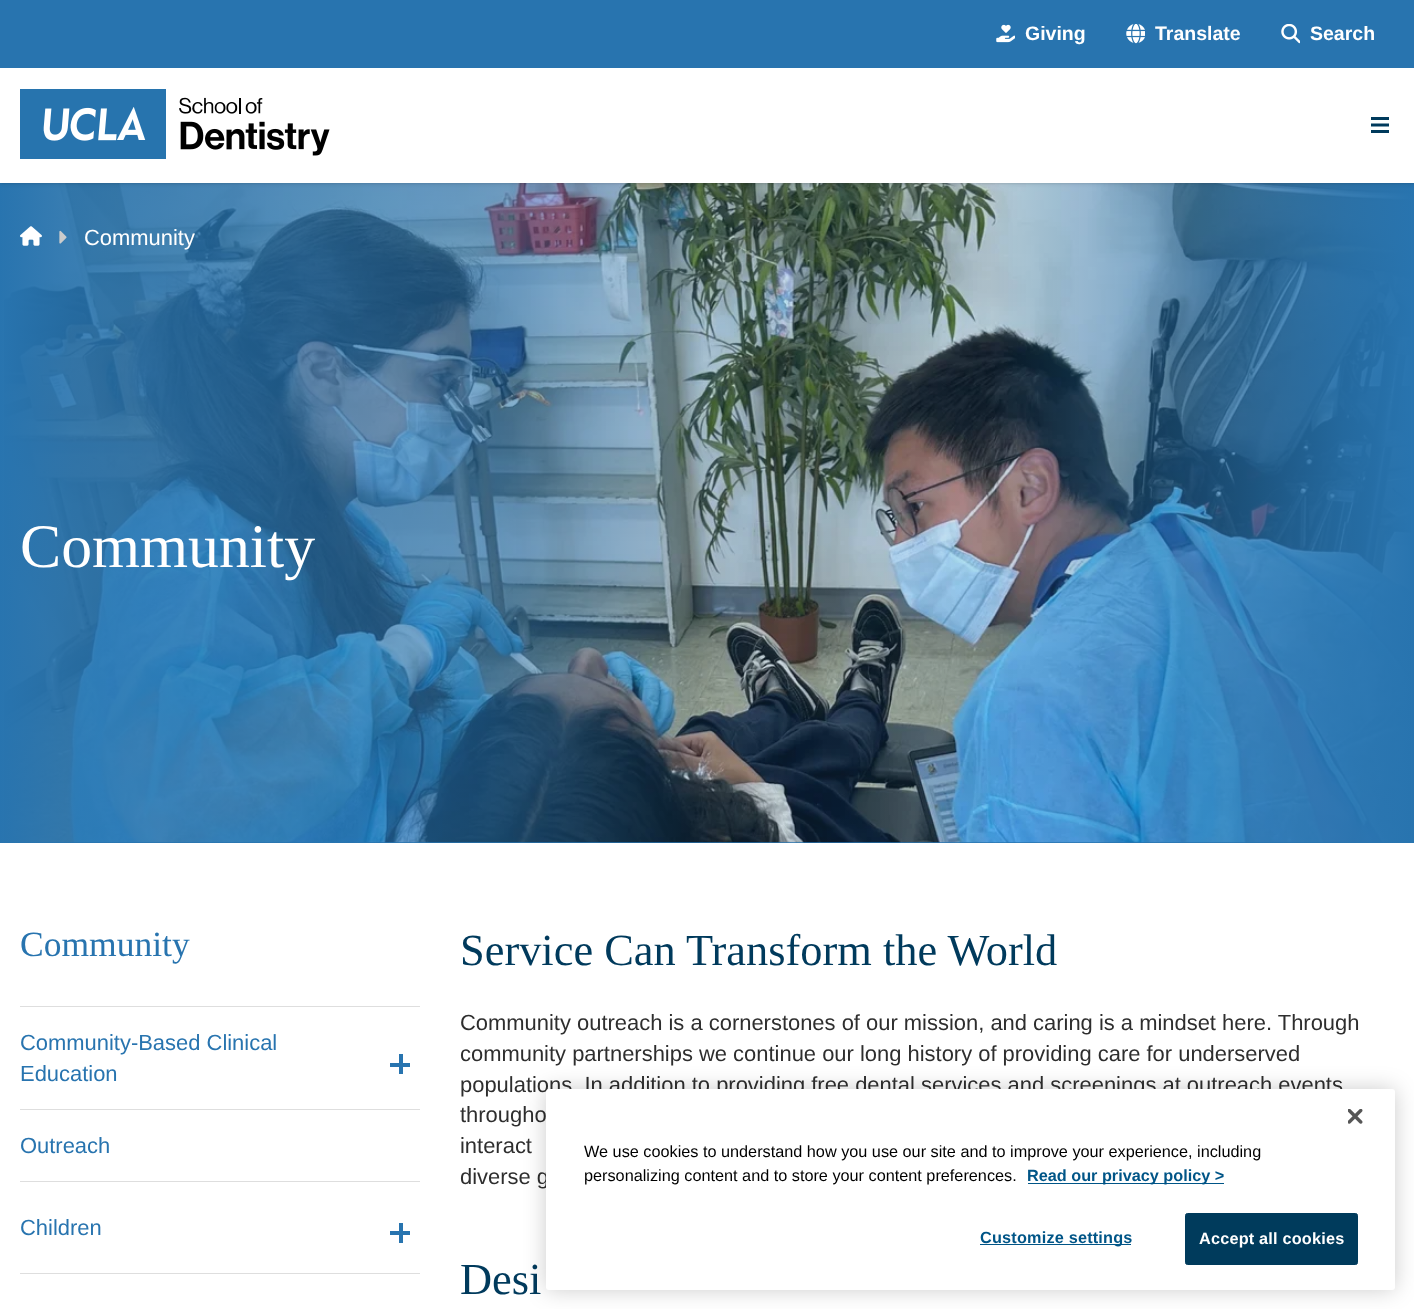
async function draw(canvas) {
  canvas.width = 1414
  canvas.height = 1309
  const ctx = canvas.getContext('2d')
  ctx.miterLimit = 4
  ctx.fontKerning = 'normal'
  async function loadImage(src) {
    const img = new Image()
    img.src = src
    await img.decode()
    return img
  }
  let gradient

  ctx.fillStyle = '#fff'
  ctx.fillRect(0, 0, 1414, 1309)
  ctx.fillStyle = '#2874af'
  ctx.fillRect(4, 842, 1407, 1)
  ctx.drawImage(await loadImage('image4.png'), 4, 183, 1407, 660)
  gradient = ctx.createLinearGradient(0, 513, 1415, 512)
  gradient.addColorStop(0, '#2874af')
  gradient.addColorStop(0.05, '#2874afe6')
  gradient.addColorStop(0.35, '#2874af99')
  gradient.addColorStop(0.5, '#2874af33')
  gradient.addColorStop(0.7, '#2874af33')
  gradient.addColorStop(0.95, '#2874afe6')
  gradient.addColorStop(1, '#2874af')
  ctx.fillStyle = gradient
  ctx.fillRect(0, 183, 1414, 660)
  ctx.fillStyle = '#0000001a'
  ctx.filter = 'blur(1px)'
  ctx.beginPath()
  ctx.rect(1, 3, 1413, 180)
  ctx.fill()
  ctx.filter = 'none'
  ctx.filter = 'blur(2px)'
  ctx.beginPath()
  ctx.rect(0, 1, 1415, 183)
  ctx.fill()
  ctx.filter = 'none'
  ctx.fillStyle = '#fff'
  ctx.fillRect(0, 68, 1414, 115)
  ctx.fillStyle = '#2874af'
  ctx.fillRect(0, 0, 1414, 68)
  ctx.drawImage(await loadImage('image0.png'), 996, 24, 19, 19)
  ctx.font = 'bold 19.5px Liberation Sans'
  ctx.fillStyle = '#fff'
  ctx.fillText('Giving', 1025, 40)
  ctx.drawImage(await loadImage('image1.png'), 1126, 24, 19, 20)
  ctx.fillText('Translate', 1155, 40)
  ctx.drawImage(await loadImage('image2.png'), 1281, 24, 19, 20)
  ctx.fillText('Search', 1310, 40)
  ctx.drawImage(await loadImage('image3.png'), 20, 89, 310, 70)
  ctx.fillStyle = '#003a5c'
  ctx.fillRect(1371, 117, 18, 3)
  ctx.beginPath()
  ctx.moveTo(1371, 125)
  ctx.lineTo(1389, 125)
  ctx.strokeStyle = '#003a5c'
  ctx.lineWidth = 3
  ctx.stroke()
  ctx.fillRect(1371, 130, 18, 3)
  ctx.drawImage(await loadImage('image5.png'), 20, 226, 22, 20)
  ctx.drawImage(await loadImage('image6.png'), 59, 230, 8, 14)
  ctx.font = '21.95px Liberation Sans'
  ctx.fillStyle = '#fff'
  ctx.fillText('Community', 84, 245)
  ctx.font = '61.75px Liberation Serif'
  ctx.fillText('Community', 20, 567)
  ctx.font = '35.5px Liberation Serif'
  ctx.fillStyle = '#2874af'
  ctx.fillText('Community', 20, 956)
  ctx.fillStyle = '#dedede'
  ctx.fillRect(20, 1006, 400, 1)
  ctx.font = '21.95px Liberation Sans'
  ctx.fillStyle = '#2874af'
  ctx.fillText('Community-Based Clinical', 20, 1050)
  ctx.fillText('Education', 20, 1081)
  ctx.fillRect(390, 1063, 20, 4)
  ctx.fillRect(399, 1054, 4, 20)
  ctx.fillStyle = '#dedede'
  ctx.fillRect(20, 1109, 400, 1)
  ctx.fillStyle = '#2874af'
  ctx.fillText('Outreach', 20, 1153)
  ctx.fillStyle = '#dedede'
  ctx.fillRect(20, 1181, 400, 1)
  ctx.fillStyle = '#2874af'
  ctx.fillText('Children', 20, 1235)
  ctx.fillRect(390, 1231, 20, 4)
  ctx.fillRect(399, 1223, 4, 20)
  ctx.fillStyle = '#dedede'
  ctx.fillRect(20, 1273, 400, 1)
  ctx.font = '44.4px Liberation Serif'
  ctx.fillStyle = '#003a5c'
  ctx.fillText('Service Can Transform the World', 460, 965)
  ctx.font = '21.95px Liberation Sans'
  ctx.fillStyle = '#2e2e2e'
  ctx.fillText('Community outreach is a cornerstones of our mission, and caring is a mindset here. Through', 460, 1030)
  ctx.fillText('community partnerships we continue our long history of providing care for underserved', 460, 1061)
  ctx.fillText('populations. In addition to providing free dental services and screenings at outreach events', 460, 1092)
  ctx.fillText('througho', 460, 1122)
  ctx.fillText('interact', 460, 1153)
  ctx.fillText('diverse g', 460, 1184)
  ctx.font = '44.4px Liberation Serif'
  ctx.fillStyle = '#003a5c'
  ctx.fillText('Desi', 460, 1294)
  ctx.fillStyle = '#00000033'
  ctx.filter = 'blur(11px)'
  ctx.beginPath()
  ctx.roundRect(546, 1089, 849, 201, 3)
  ctx.fill()
  ctx.filter = 'none'
  ctx.fillStyle = '#fff'
  ctx.beginPath()
  ctx.roundRect(546, 1089, 849, 201, 3)
  ctx.fill()
  ctx.drawImage(await loadImage('image7.png'), 1348, 1109, 15, 15)
  ctx.font = '16.25px Liberation Sans'
  ctx.fillStyle = '#000'
  ctx.fillText('We use cookies to understand how you use our site and to improve your experience, including', 584, 1157)
  ctx.fillText('personalizing content and to store your content preferences.', 584, 1181)
  ctx.fillStyle = '#005587'
  ctx.fillRect(1028, 1183, 196, 1)
  ctx.font = 'bold 16.25px Liberation Sans'
  ctx.fillText('Read our privacy policy >', 1027, 1181)
  ctx.fillRect(980, 1244, 151, 1)
  ctx.letterSpacing = '0.2px'
  ctx.fillText('Customize settings', 980, 1243)
  ctx.fillStyle = '#003b5c'
  ctx.beginPath()
  ctx.roundRect(1185.5, 1213.5, 172, 51, 2)
  ctx.fill()
  ctx.strokeStyle = '#003b5c'
  ctx.lineWidth = 1
  ctx.stroke()
  ctx.fillStyle = '#fff'
  ctx.fillText('Accept all cookies', 1199, 1244)
}

draw(document.querySelector('canvas'))
